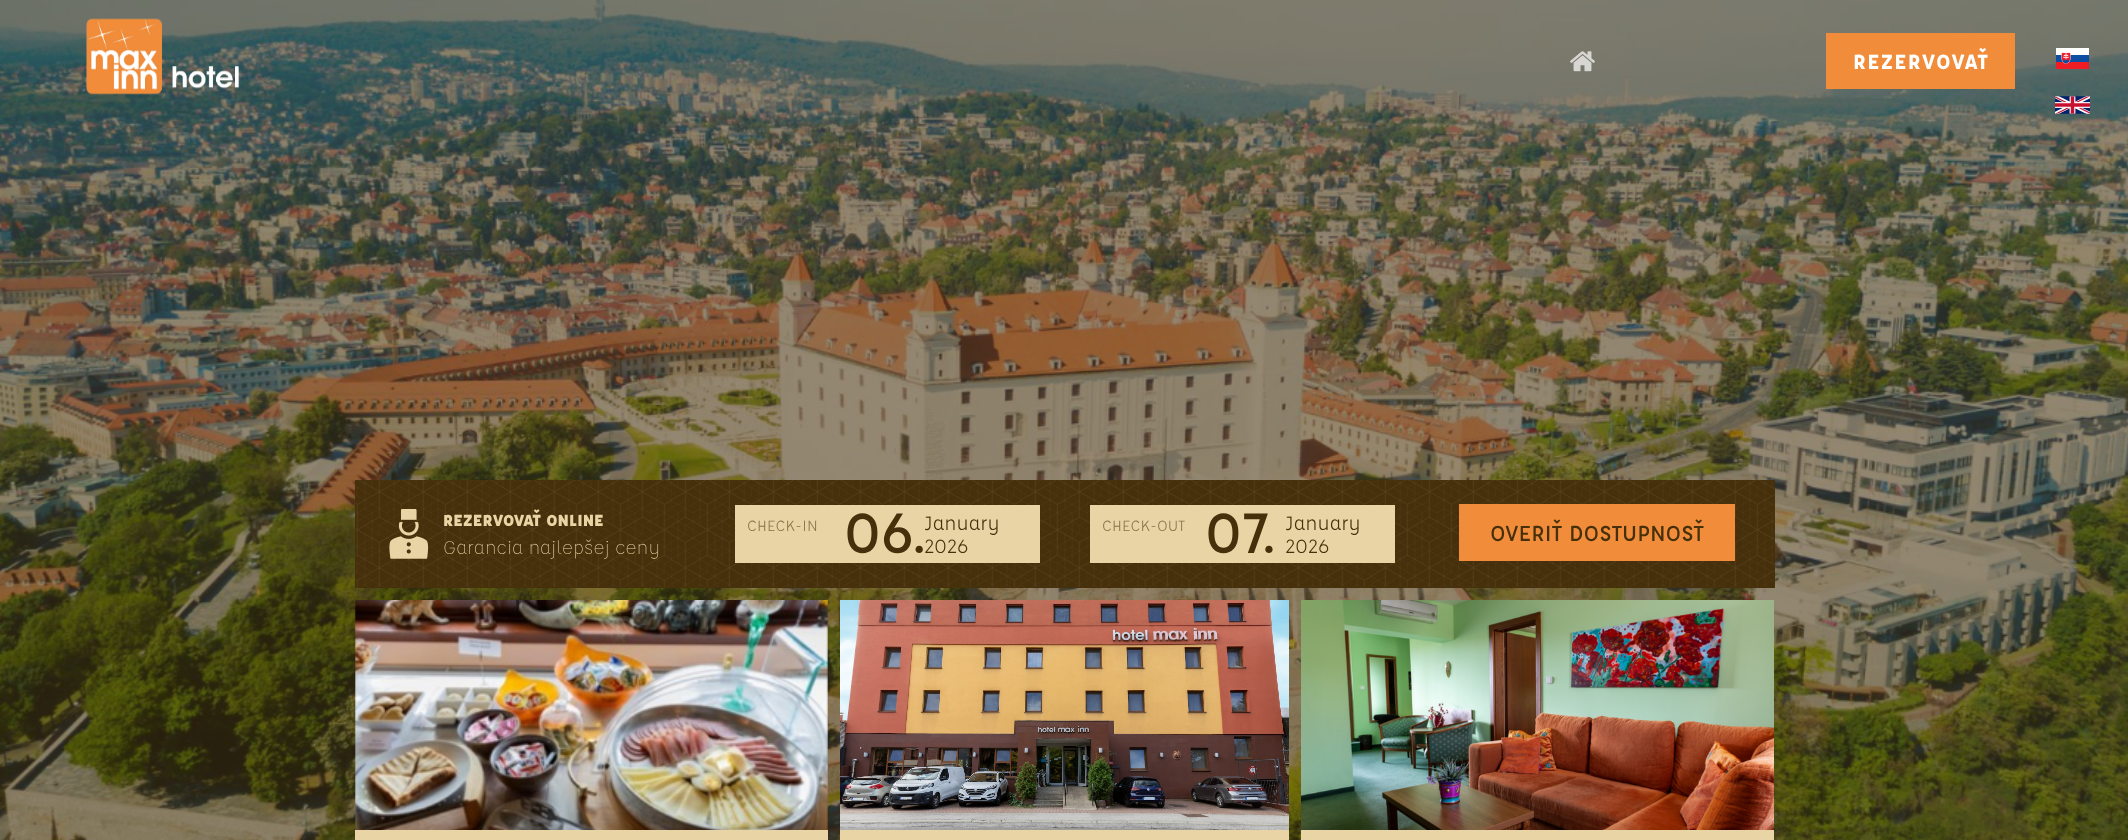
async function draw(canvas) {
  canvas.width = 2128
  canvas.height = 840
  const ctx = canvas.getContext('2d')
  ctx.miterLimit = 4
  ctx.fontKerning = 'normal'
  async function loadImage(src) {
    const img = new Image()
    img.src = src
    await img.decode()
    return img
  }

  ctx.fillStyle = '#fff'
  ctx.fillRect(0, 0, 2128, 840)
  ctx.drawImage(await loadImage('image4.png'), 0, 0, 2128, 840)
  ctx.drawImage(await loadImage('image0.png'), 86, 18, 153, 77)
  ctx.drawImage(await loadImage('image1.png'), 1570, 51, 25, 21)
  ctx.fillStyle = '#f18c3a'
  ctx.fillRect(1826, 33, 189, 56)
  ctx.letterSpacing = '1.25px'
  ctx.font = 'bold 22.5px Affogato'
  ctx.fillStyle = '#fff'
  ctx.fillText('REZERVOVAŤ', 1853, 69)
  ctx.drawImage(await loadImage('image2.png'), 2056, 48, 33, 21)
  ctx.drawImage(await loadImage('image3.png'), 2055, 96, 35, 18)
  ctx.fillStyle = '#46300b'
  ctx.fillRect(355, 480, 1420, 108)
  ctx.drawImage(await loadImage('image5.png'), 355, 480, 1420, 108)
  ctx.drawImage(await loadImage('image6.png'), 389, 509, 40, 50)
  ctx.letterSpacing = '0px'
  ctx.font = '900 17.5px Affogato'
  ctx.fillStyle = '#e9d4a5'
  ctx.fillText('REZERVOVAŤ ONLINE', 443, 526)
  ctx.font = '300 20px Affogato'
  ctx.fillText('Garancia najlepšej ceny', 443, 554)
  ctx.fillRect(735, 505, 305, 58)
  ctx.font = '16.25px Affogato'
  ctx.fillStyle = '#877249'
  ctx.fillText('CHECK-IN', 747, 531)
  ctx.font = '500 62px Affogato'
  ctx.fillStyle = '#46300b'
  ctx.fillText('06.', 844, 553)
  ctx.font = '21px Affogato'
  ctx.fillText('January', 924, 530)
  ctx.fillText('2026', 924, 553)
  ctx.fillStyle = '#e9d4a5'
  ctx.fillRect(1090, 505, 305, 58)
  ctx.font = '16.25px Affogato'
  ctx.fillStyle = '#877249'
  ctx.fillText('CHECK-OUT', 1102, 531)
  ctx.font = '500 62px Affogato'
  ctx.fillStyle = '#46300b'
  ctx.fillText('07.', 1205, 553)
  ctx.font = '21px Affogato'
  ctx.fillText('January', 1285, 530)
  ctx.fillText('2026', 1285, 553)
  ctx.fillStyle = '#f18c3a'
  ctx.fillRect(1459, 504, 276, 57)
  ctx.font = '500 23.75px Affogato'
  ctx.fillStyle = '#46300b'
  ctx.fillText('OVERIŤ DOSTUPNOSŤ', 1490, 541)
  ctx.drawImage(await loadImage('image7.png'), 355, 600, 473, 230)
  ctx.fillStyle = '#e9d4a5'
  ctx.fillRect(355, 830, 473, 10)
  ctx.drawImage(await loadImage('image8.png'), 840, 600, 449, 230)
  ctx.fillRect(840, 830, 449, 10)
  ctx.drawImage(await loadImage('image9.png'), 1301, 600, 473, 230)
  ctx.fillRect(1301, 830, 473, 10)
}

draw(document.querySelector('canvas'))
